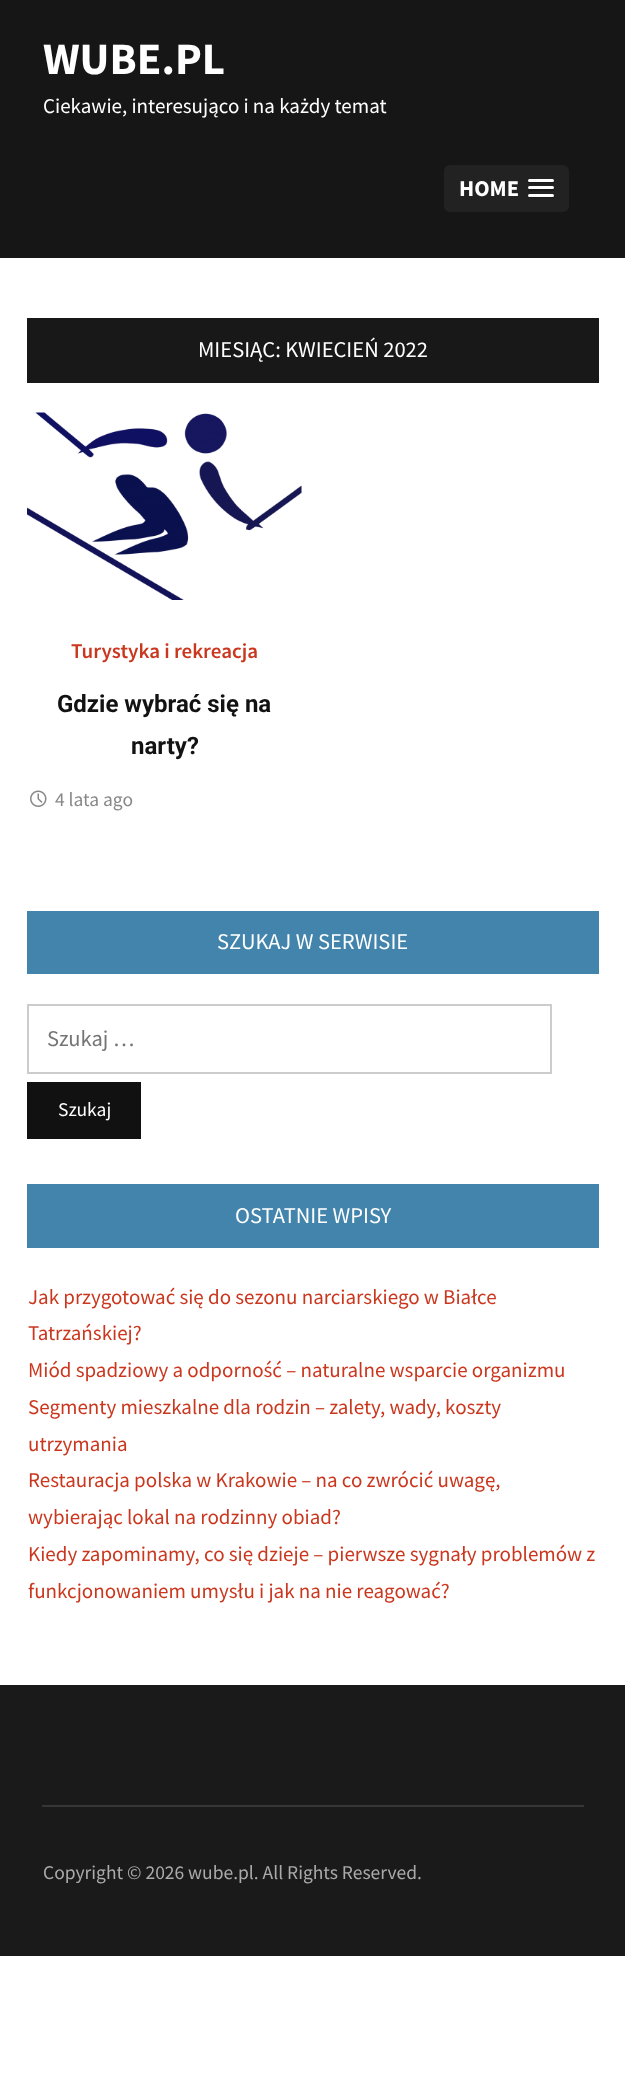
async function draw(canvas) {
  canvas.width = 625
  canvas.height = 2099
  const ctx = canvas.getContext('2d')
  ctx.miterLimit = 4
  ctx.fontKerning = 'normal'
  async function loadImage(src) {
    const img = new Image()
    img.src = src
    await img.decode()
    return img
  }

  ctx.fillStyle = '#fff'
  ctx.fillRect(0, 0, 625, 2099)
  ctx.fillStyle = '#161616'
  ctx.fillRect(0, 0, 625, 258)
  ctx.font = 'bold 45px Source Sans Pro'
  ctx.fillStyle = '#fff'
  ctx.fillText('WUBE.PL', 43, 74)
  ctx.font = '21px Source Sans Pro'
  ctx.fillText('Ciekawie, interesująco i na każdy temat', 43, 113)
  ctx.fillStyle = '#222'
  ctx.beginPath()
  ctx.roundRect(444, 165, 125, 47, 6)
  ctx.fill()
  ctx.font = 'bold 22.5px Source Sans Pro'
  ctx.fillStyle = '#fff'
  ctx.fillText('HOME', 459, 196)
  ctx.fillStyle = '#1a1a1a'
  ctx.beginPath()
  ctx.moveTo(528, 181)
  ctx.bezierCurveTo(526.5, 183.5, 533, 183, 533.5, 183)
  ctx.lineTo(552.5, 183)
  ctx.bezierCurveTo(554, 183, 554.5, 181, 553.5, 180.5)
  ctx.bezierCurveTo(553.5, 181, 552.5, 181.5, 552, 181.5)
  ctx.lineTo(529.5, 181.5)
  ctx.bezierCurveTo(529, 181.5, 528.5, 181, 528, 181)
  ctx.closePath()
  ctx.fill()
  ctx.fillStyle = '#fff'
  ctx.beginPath()
  ctx.roundRect(528, 179, 26, 3, 1.5)
  ctx.fill()
  ctx.fillStyle = '#1a1a1a'
  ctx.beginPath()
  ctx.moveTo(528.5, 188.5)
  ctx.lineTo(528, 190)
  ctx.bezierCurveTo(528.5, 192, 532.5, 191, 533.5, 191)
  ctx.lineTo(541, 191)
  ctx.bezierCurveTo(543, 191, 552.5, 191.5, 553.5, 190.5)
  ctx.bezierCurveTo(554, 190, 554, 189, 553.5, 188)
  ctx.lineTo(552, 189)
  ctx.lineTo(529.5, 189)
  ctx.closePath()
  ctx.fill()
  ctx.fillStyle = '#fff'
  ctx.beginPath()
  ctx.roundRect(528, 186, 26, 3, 1.5)
  ctx.fill()
  ctx.fillStyle = '#1a1a1a'
  ctx.beginPath()
  ctx.moveTo(528, 196)
  ctx.bezierCurveTo(526.5, 198.5, 533, 198, 533.5, 198)
  ctx.lineTo(552.5, 198)
  ctx.bezierCurveTo(554, 198, 554.5, 196, 553.5, 195.5)
  ctx.bezierCurveTo(553.5, 196, 552.5, 196.5, 552, 196.5)
  ctx.lineTo(529.5, 196.5)
  ctx.bezierCurveTo(529, 196.5, 528.5, 196, 528, 196)
  ctx.closePath()
  ctx.fill()
  ctx.fillStyle = '#fff'
  ctx.beginPath()
  ctx.roundRect(528, 194, 26, 3, 1.5)
  ctx.fill()
  ctx.fillStyle = '#181818'
  ctx.fillRect(27, 318, 572, 65)
  ctx.font = '22.5px Source Sans Pro'
  ctx.fillStyle = '#fff'
  ctx.fillText('MIESIĄC: KWIECIEŃ 2022', 198, 357)
  ctx.drawImage(await loadImage('image0.png'), 27, 412, 275, 188)
  ctx.font = '600 21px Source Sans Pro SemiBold'
  ctx.fillStyle = '#ca371e'
  ctx.fillText('Turystyka i rekreacja', 71, 658)
  ctx.font = 'bold 24px Roboto'
  ctx.fillStyle = '#121212'
  ctx.fillText('Gdzie wybrać się na', 57, 712)
  ctx.fillText('narty?', 131, 754)
  ctx.drawImage(await loadImage('image1.png'), 30, 790, 17, 17)
  ctx.font = '19.5px Source Sans Pro'
  ctx.fillStyle = '#888'
  ctx.fillText('4 lata ago', 55, 806)
  ctx.fillStyle = '#4284ac'
  ctx.fillRect(27, 911, 572, 63)
  ctx.font = '22.5px Source Sans Pro'
  ctx.fillStyle = '#fff'
  ctx.fillText('SZUKAJ W SERWISIE', 217, 949)
  ctx.strokeStyle = '#ccc'
  ctx.lineWidth = 2
  ctx.strokeRect(28, 1005, 523, 68)
  ctx.fillStyle = '#757575'
  ctx.fillText('Szukaj …', 47, 1046)
  ctx.fillStyle = '#111'
  ctx.fillRect(27, 1082, 114, 57)
  ctx.font = '19.5px Source Sans Pro'
  ctx.fillStyle = '#fff'
  ctx.fillText('Szukaj', 58, 1116)
  ctx.fillStyle = '#4284ac'
  ctx.fillRect(27, 1184, 572, 64)
  ctx.font = '22.5px Source Sans Pro'
  ctx.fillStyle = '#fff'
  ctx.fillText('OSTATNIE WPISY', 235, 1223)
  ctx.font = '21px Source Sans Pro'
  ctx.fillStyle = '#ca371e'
  ctx.fillText('Jak przygotować się do sezonu narciarskiego w Białce', 28, 1304)
  ctx.fillText('Tatrzańskiej?', 28, 1340)
  ctx.fillText('Miód spadziowy a odporność – naturalne wsparcie organizmu', 28, 1377)
  ctx.fillText('Segmenty mieszkalne dla rodzin – zalety, wady, koszty', 28, 1414)
  ctx.fillText('utrzymania', 28, 1451)
  ctx.fillText('Restauracja polska w Krakowie – na co zwrócić uwagę,', 28, 1487)
  ctx.fillText('wybierając lokal na rodzinny obiad?', 28, 1524)
  ctx.fillText('Kiedy zapominamy, co się dzieje – pierwsze sygnały problemów z', 28, 1561)
  ctx.fillText('funkcjonowaniem umysłu i jak na nie reagować?', 28, 1598)
  ctx.fillStyle = '#1a1a1a'
  ctx.fillRect(0, 1685, 625, 271)
  ctx.fillStyle = '#363636'
  ctx.fillRect(42, 1805, 542, 2)
  ctx.font = '19.5px Source Sans Pro'
  ctx.fillStyle = '#aaa'
  ctx.fillText('Copyright © 2026 wube.pl. All Rights Reserved.', 43, 1879)
}

draw(document.querySelector('canvas'))
